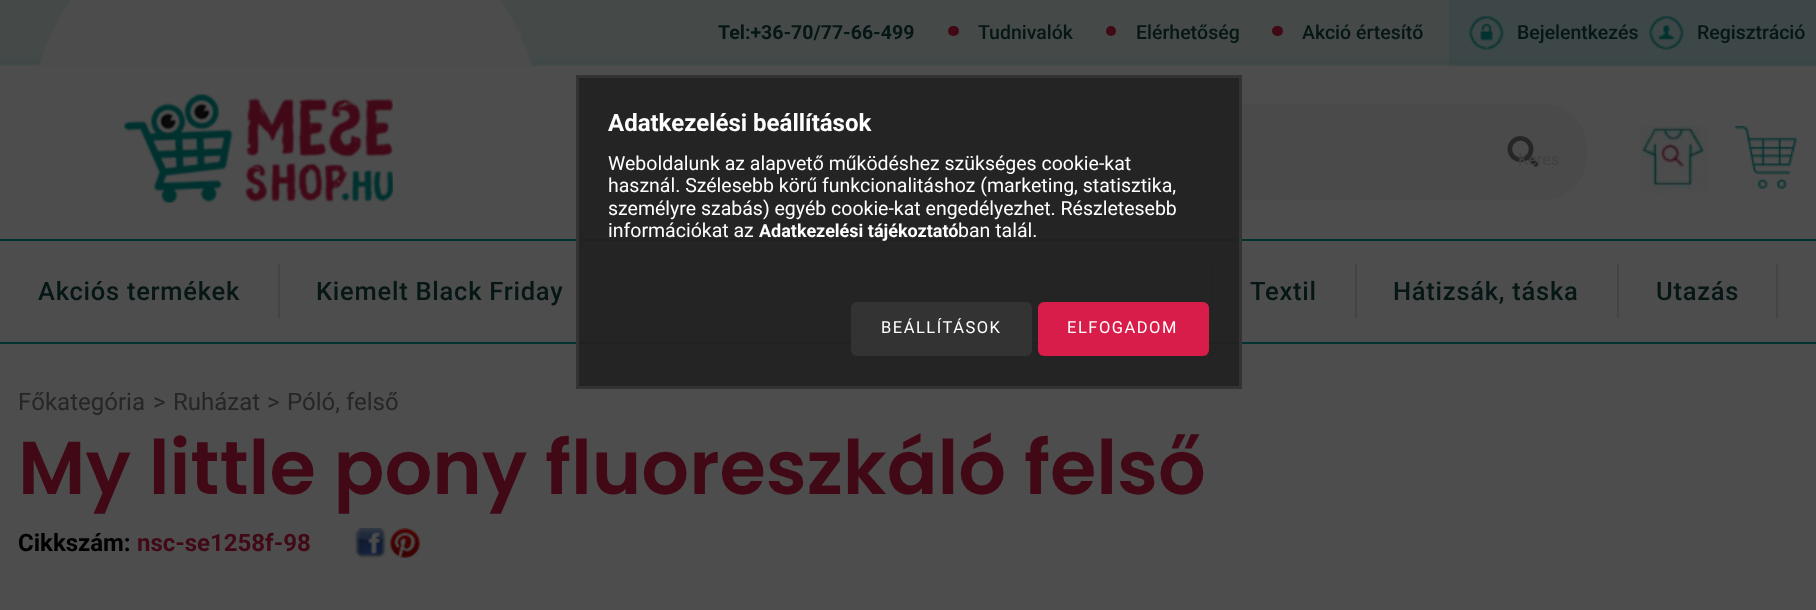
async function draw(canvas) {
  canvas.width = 1816
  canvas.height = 610
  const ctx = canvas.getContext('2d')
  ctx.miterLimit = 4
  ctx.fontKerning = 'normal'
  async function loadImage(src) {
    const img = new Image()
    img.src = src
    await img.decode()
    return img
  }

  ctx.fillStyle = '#4d4d4d'
  ctx.fillRect(0, 0, 1816, 610)
  ctx.drawImage(await loadImage('image0.png'), 0, 0, 1449, 66)
  ctx.fillStyle = '#00322f'
  ctx.fillRect(0, 239, 1816, 2)
  ctx.font = 'bold 19.5px Roboto'
  ctx.fillStyle = '#051615'
  ctx.fillText('Tel:+36-70/77-66-499', 718, 39)
  ctx.fillStyle = '#410916'
  ctx.beginPath()
  ctx.roundRect(948, 26, 11, 10, 5)
  ctx.fill()
  ctx.font = '500 19.5px Roboto'
  ctx.fillStyle = '#051615'
  ctx.fillText('Tudnivalók', 978, 39)
  ctx.fillStyle = '#410916'
  ctx.beginPath()
  ctx.arc(1111, 31, 5, 0, 2 * Math.PI)
  ctx.fill()
  ctx.fillStyle = '#051615'
  ctx.fillText('Elérhetőség', 1136, 39)
  ctx.fillStyle = '#410916'
  ctx.beginPath()
  ctx.roundRect(1272, 26, 11, 10, 5)
  ctx.fill()
  ctx.fillStyle = '#051615'
  ctx.fillText('Akció értesítő', 1302, 39)
  ctx.drawImage(await loadImage('image1.png'), 1449, 0, 367, 66)
  ctx.drawImage(await loadImage('image2.png'), 1468, 16, 37, 34)
  ctx.fillText('Bejelentkezés', 1517, 39)
  ctx.drawImage(await loadImage('image3.png'), 1648, 16, 37, 34)
  ctx.fillText('Regisztráció', 1697, 39)
  ctx.drawImage(await loadImage('image4.png'), 38, 0, 496, 67)
  ctx.drawImage(await loadImage('image5.png'), 123, 93, 270, 110)
  ctx.fillStyle = '#4a4a4a'
  ctx.beginPath()
  ctx.roundRect(1062, 104, 525, 96, 45)
  ctx.fill()
  ctx.drawImage(await loadImage('image6.png'), 1507, 136, 32, 31)
  ctx.font = '16.5px Roboto'
  ctx.fillStyle = '#414141'
  ctx.fillText('Keres', 1518, 165)
  ctx.drawImage(await loadImage('image7.png'), 1641, 126, 68, 68)
  ctx.drawImage(await loadImage('image8.png'), 1734, 126, 63, 63)
  ctx.fillStyle = '#00322f'
  ctx.fillRect(0, 342, 1816, 2)
  ctx.fillStyle = '#444'
  ctx.fillRect(278, 264, 2, 54)
  ctx.letterSpacing = '0.75px'
  ctx.font = '500 25.5px Roboto'
  ctx.fillStyle = '#051615'
  ctx.fillText('Akciós termékek', 38, 300)
  ctx.fillStyle = '#444'
  ctx.fillRect(687, 264, 2, 54)
  ctx.fillStyle = '#051615'
  ctx.fillText('Kiemelt Black Friday', 316, 300)
  ctx.fillStyle = '#444'
  ctx.fillRect(903, 264, 2, 38)
  ctx.fillRect(1079, 264, 2, 38)
  ctx.fillRect(1211, 264, 2, 54)
  ctx.fillRect(1355, 264, 2, 54)
  ctx.fillStyle = '#051615'
  ctx.fillText('Textil', 1250, 300)
  ctx.fillStyle = '#444'
  ctx.fillRect(1617, 264, 2, 54)
  ctx.fillStyle = '#051615'
  ctx.fillText('Hátizsák, táska', 1393, 300)
  ctx.fillStyle = '#444'
  ctx.fillRect(1776, 264, 2, 54)
  ctx.fillStyle = '#051615'
  ctx.fillText('Utazás', 1656, 300)
  ctx.letterSpacing = '0px'
  ctx.font = '24px Roboto'
  ctx.fillStyle = '#262626'
  ctx.fillText('Főkategória', 18, 410)
  ctx.fillText('>', 153, 410)
  ctx.fillText('Ruházat', 173, 410)
  ctx.fillText('>', 267, 410)
  ctx.fillText('Póló, felső', 287, 410)
  ctx.font = '600 75px Poppins'
  ctx.fillStyle = '#410916'
  ctx.fillText('My little pony fluoreszkáló felső', 18, 494)
  ctx.font = 'bold 24px Roboto'
  ctx.fillStyle = '#010000'
  ctx.fillText('Cikkszám:', 18, 551)
  ctx.fillStyle = '#410916'
  ctx.fillText('nsc-se1258f-98', 137, 551)
  ctx.drawImage(await loadImage('image9.png'), 355, 528, 31, 30)
  ctx.drawImage(await loadImage('image10.png'), 390, 528, 30, 30)
  ctx.fillStyle = '#222222f2'
  ctx.beginPath()
  ctx.rect(577.5, 76.5, 663, 311)
  ctx.fill()
  ctx.strokeStyle = '#333'
  ctx.lineWidth = 3
  ctx.stroke()
  ctx.fillStyle = '#fff'
  ctx.fillText('Adatkezelési beállítások', 608, 131)
  ctx.font = '19.5px Roboto'
  ctx.fillText('Weboldalunk az alapvető működéshez szükséges cookie-kat', 608, 170)
  ctx.fillText('használ. Szélesebb körű funkcionalitáshoz (marketing, statisztika,', 608, 192)
  ctx.fillText('személyre szabás) egyéb cookie-kat engedélyezhet. Részletesebb', 608, 215)
  ctx.fillText('információkat az', 608, 237)
  ctx.font = 'bold 18px Roboto'
  ctx.fillText('Adatkezelési tájékoztató', 759, 237)
  ctx.font = '19.5px Roboto'
  ctx.fillText('ban talál.', 958, 237)
  ctx.fillStyle = '#333'
  ctx.beginPath()
  ctx.roundRect(851, 302, 181, 54, 6)
  ctx.fill()
  ctx.letterSpacing = '1.5px'
  ctx.font = '16.5px Roboto'
  ctx.fillStyle = '#fff'
  ctx.fillText('BEÁLLÍTÁSOK', 881, 333)
  ctx.fillStyle = '#d81d4a'
  ctx.beginPath()
  ctx.roundRect(1038, 302, 171, 54, 6)
  ctx.fill()
  ctx.fillStyle = '#fff'
  ctx.fillText('ELFOGADOM', 1067, 333)
}

draw(document.querySelector('canvas'))
